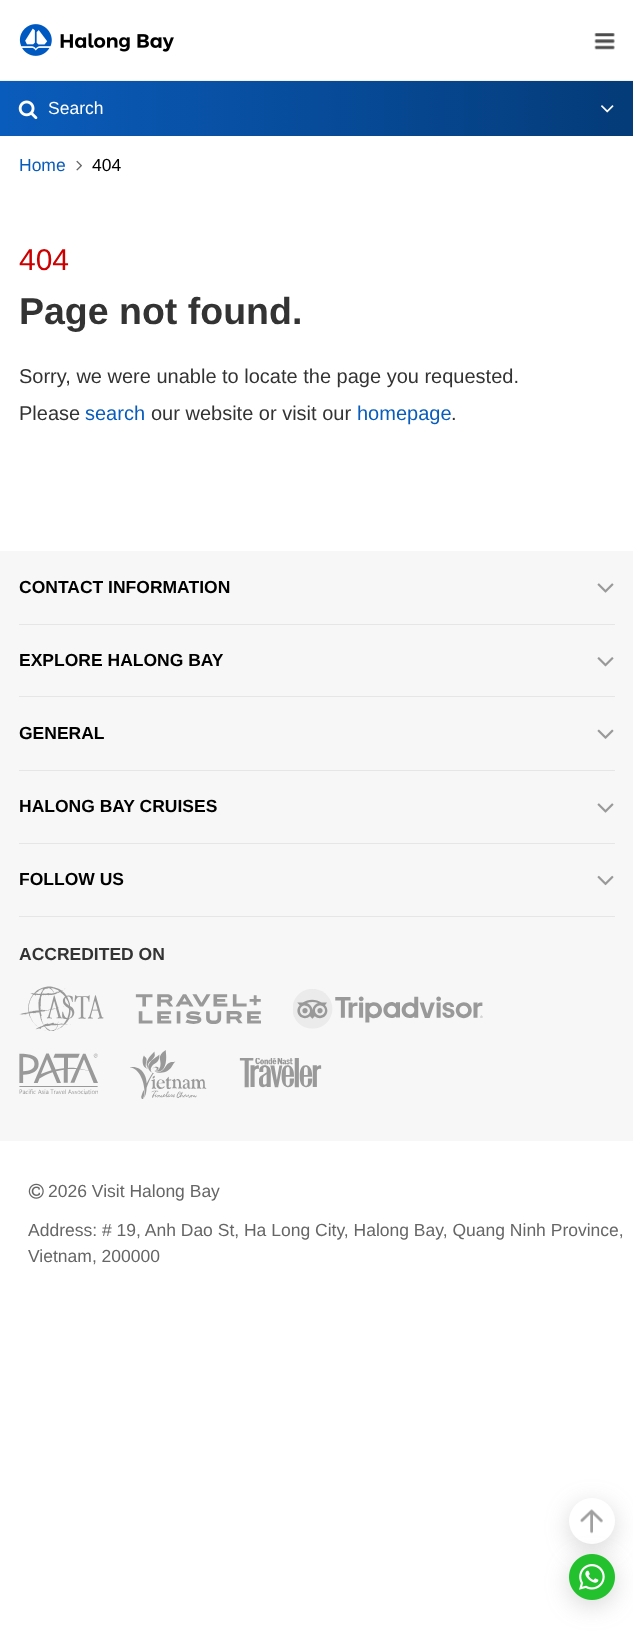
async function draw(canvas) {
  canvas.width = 633
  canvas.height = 1637
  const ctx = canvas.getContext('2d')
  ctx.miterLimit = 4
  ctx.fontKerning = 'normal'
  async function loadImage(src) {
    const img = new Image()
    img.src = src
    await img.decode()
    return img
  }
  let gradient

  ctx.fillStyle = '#fff'
  ctx.fillRect(0, 0, 633, 1637)
  ctx.fillStyle = '#f1f1f1'
  ctx.fillRect(0, 80, 633, 1)
  ctx.drawImage(await loadImage('image0.png'), 19, 24, 155, 32)
  ctx.drawImage(await loadImage('image1.png'), 594, 33, 21, 17)
  gradient = ctx.createLinearGradient(0, 109, 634, 109)
  gradient.addColorStop(0, '#0a5cbc')
  gradient.addColorStop(1, '#043b78')
  ctx.fillStyle = gradient
  ctx.fillRect(0, 81, 633, 55)
  ctx.drawImage(await loadImage('image2.png'), 18, 100, 20, 20)
  ctx.font = '17.5px Liberation Sans'
  ctx.fillStyle = '#fff'
  ctx.fillText('Search', 48, 114)
  ctx.drawImage(await loadImage('image3.png'), 601, 105, 13, 8)
  ctx.fillStyle = '#095cbc'
  ctx.fillText('Home', 19, 171)
  ctx.drawImage(await loadImage('image4.png'), 76, 160, 6, 11)
  ctx.fillStyle = '#000'
  ctx.fillText('404', 92, 171)
  ctx.font = '30px Liberation Sans'
  ctx.fillStyle = '#c00'
  ctx.fillText('404', 19, 270)
  ctx.font = 'bold 37.5px Liberation Sans'
  ctx.fillStyle = '#333'
  ctx.fillText('Page not found.', 19, 324)
  ctx.font = '20px Liberation Sans'
  ctx.fillText('Sorry, we were unable to locate the page you requested.', 19, 383)
  ctx.fillText('Please', 19, 420)
  ctx.fillStyle = '#095cbc'
  ctx.fillText('search', 85, 420)
  ctx.fillStyle = '#333'
  ctx.fillText('our website or visit our', 151, 420)
  ctx.fillStyle = '#095cbc'
  ctx.fillText('homepage', 357, 420)
  ctx.fillStyle = '#333'
  ctx.fillText('.', 451, 420)
  ctx.fillStyle = '#f7f7f7'
  ctx.fillRect(0, 551, 633, 590)
  ctx.fillStyle = '#e6e6e6'
  ctx.fillRect(19, 624, 596, 1)
  ctx.font = 'bold 17.5px Liberation Sans'
  ctx.fillStyle = '#000'
  ctx.fillText('CONTACT INFORMATION', 19, 593)
  ctx.drawImage(await loadImage('image5.png'), 597, 583, 17, 10)
  ctx.fillStyle = '#e6e6e6'
  ctx.fillRect(19, 696, 596, 1)
  ctx.fillStyle = '#000'
  ctx.fillText('EXPLORE HALONG BAY', 19, 666)
  ctx.drawImage(await loadImage('image6.png'), 597, 657, 17, 10)
  ctx.fillStyle = '#e6e6e6'
  ctx.fillRect(19, 770, 596, 1)
  ctx.fillStyle = '#000'
  ctx.fillText('GENERAL', 19, 739)
  ctx.drawImage(await loadImage('image7.png'), 597, 729, 17, 10)
  ctx.fillStyle = '#e6e6e6'
  ctx.fillRect(19, 843, 596, 1)
  ctx.fillStyle = '#000'
  ctx.fillText('HALONG BAY CRUISES', 19, 812)
  ctx.drawImage(await loadImage('image5.png'), 597, 803, 17, 10)
  ctx.fillStyle = '#e6e6e6'
  ctx.fillRect(19, 916, 596, 1)
  ctx.fillStyle = '#000'
  ctx.fillText('FOLLOW US', 19, 885)
  ctx.drawImage(await loadImage('image8.png'), 597, 875, 17, 11)
  ctx.fillStyle = '#333'
  ctx.fillText('ACCREDITED ON', 19, 960)
  ctx.drawImage(await loadImage('image9.png'), 19, 986, 85, 45)
  ctx.drawImage(await loadImage('image10.png'), 135, 994, 126, 30)
  ctx.drawImage(await loadImage('image11.png'), 293, 989, 190, 40)
  ctx.drawImage(await loadImage('image12.png'), 19, 1053, 79, 42)
  ctx.drawImage(await loadImage('image13.png'), 130, 1050, 77, 49)
  ctx.drawImage(await loadImage('image14.png'), 239, 1058, 83, 30)
  ctx.drawImage(await loadImage('image15.png'), 28, 1183, 16, 16)
  ctx.font = '17.5px Liberation Sans'
  ctx.fillStyle = '#666'
  ctx.fillText('2026 Visit Halong Bay', 48, 1197)
  ctx.fillText('Address: # 19, Anh Dao St, Ha Long City, Halong Bay, Quang Ninh Province,', 28, 1236)
  ctx.fillText('Vietnam, 200000', 28, 1262)
  ctx.fillStyle = '#7c7c7c4d'
  ctx.filter = 'blur(12.5px)'
  ctx.beginPath()
  ctx.roundRect(569, 1504, 46, 46, 23)
  ctx.fill()
  ctx.filter = 'none'
  ctx.fillStyle = '#fff'
  ctx.beginPath()
  ctx.arc(592, 1521, 23, 0, 2 * Math.PI)
  ctx.fill()
  ctx.drawImage(await loadImage('image16.png'), 580, 1509, 23, 25)
  ctx.fillStyle = '#7c7c7c4d'
  ctx.filter = 'blur(12.5px)'
  ctx.beginPath()
  ctx.roundRect(569, 1560, 46, 46, 23)
  ctx.fill()
  ctx.filter = 'none'
  ctx.drawImage(await loadImage('image17.png'), 569, 1554, 46, 46)
}

draw(document.querySelector('canvas'))
